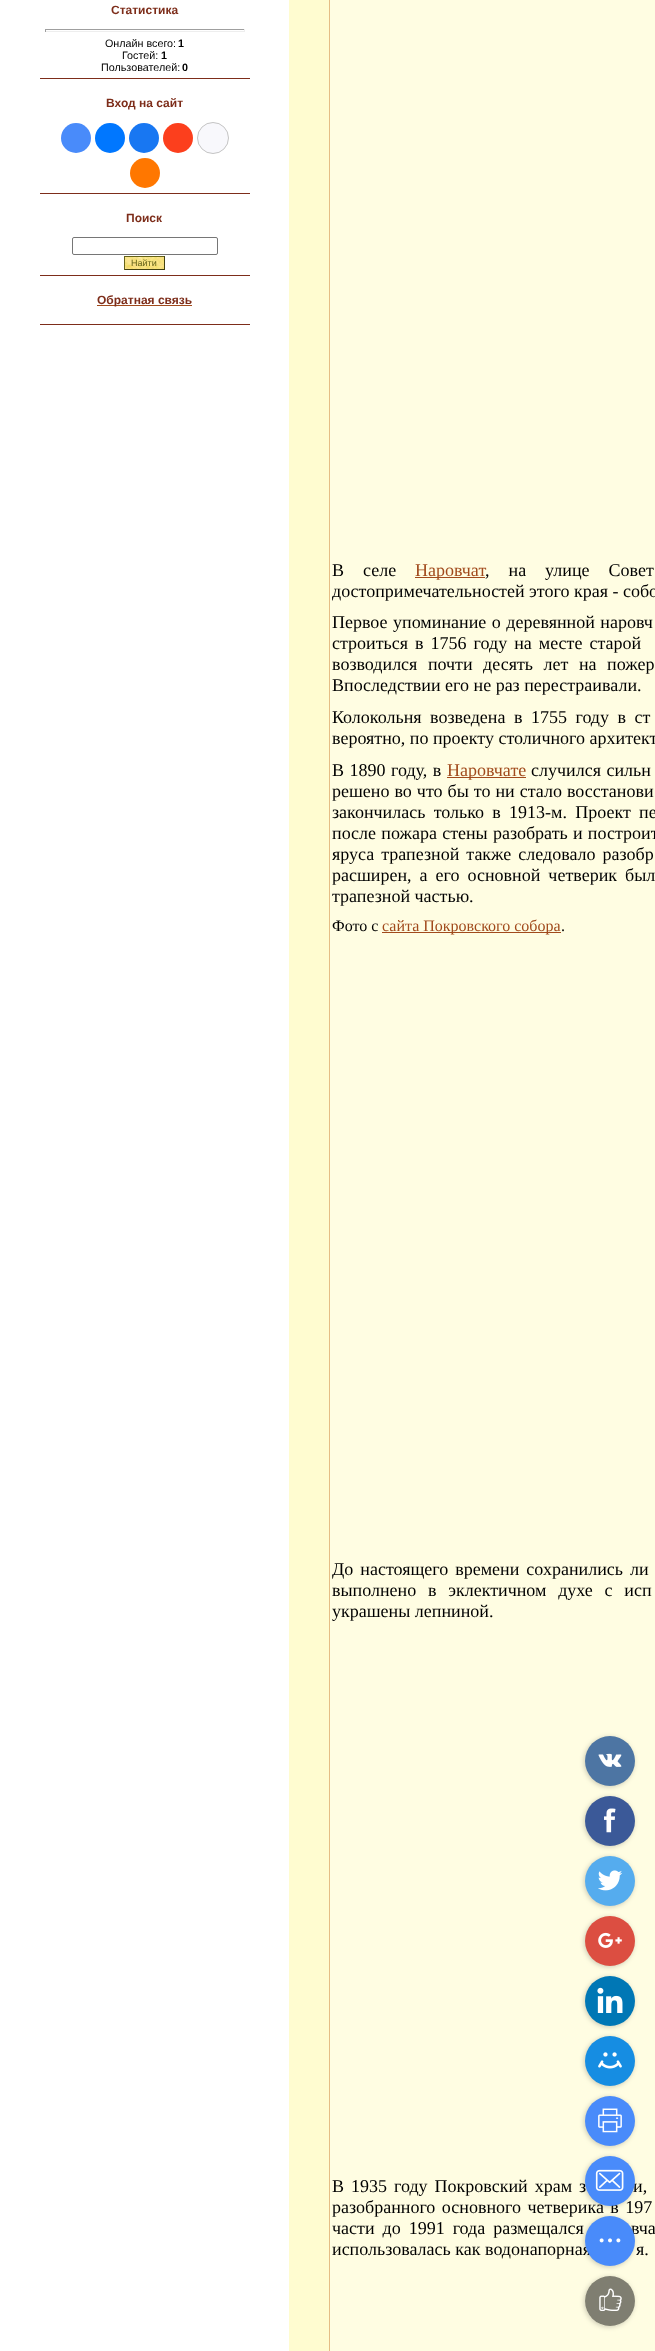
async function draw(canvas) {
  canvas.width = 655
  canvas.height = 2351
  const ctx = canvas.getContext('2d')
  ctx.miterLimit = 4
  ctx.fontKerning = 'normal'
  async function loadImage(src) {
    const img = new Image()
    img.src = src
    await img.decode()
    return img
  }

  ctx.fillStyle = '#fff'
  ctx.fillRect(0, 0, 655, 2351)
  ctx.fillStyle = '#7d2d1a'
  ctx.fillRect(40, 78, 210, 1)
  ctx.font = 'bold 12px Liberation Sans'
  ctx.fillText('Статистика', 111, 14)
  ctx.fillStyle = '#9f9f9f'
  ctx.fillRect(45, 29, 200, 1)
  ctx.fillStyle = '#eee'
  ctx.fillRect(244, 29, 1, 3)
  ctx.fillRect(45, 31, 200, 1)
  ctx.fillStyle = '#9f9f9f'
  ctx.fillRect(45, 29, 1, 3)
  ctx.font = '10.75px Liberation Sans'
  ctx.fillStyle = '#000'
  ctx.fillText('Онлайн всего:', 105, 47)
  ctx.font = 'bold 10.75px Liberation Sans'
  ctx.fillText('1', 178, 47)
  ctx.font = '10.75px Liberation Sans'
  ctx.fillText('Гостей:', 122, 59)
  ctx.font = 'bold 10.75px Liberation Sans'
  ctx.fillText('1', 161, 59)
  ctx.font = '10.75px Liberation Sans'
  ctx.fillText('Пользователей:', 101, 71)
  ctx.font = 'bold 10.75px Liberation Sans'
  ctx.fillText('0', 182, 71)
  ctx.fillStyle = '#7d2d1a'
  ctx.fillRect(40, 193, 210, 1)
  ctx.font = 'bold 12px Liberation Sans'
  ctx.fillText('Вход на сайт', 106, 107)
  ctx.fillStyle = '#498bfa'
  ctx.beginPath()
  ctx.arc(76, 138, 15, 0, 2 * Math.PI)
  ctx.fill()
  ctx.fillStyle = '#07f'
  ctx.beginPath()
  ctx.arc(110, 138, 15, 0, 2 * Math.PI)
  ctx.fill()
  ctx.fillStyle = '#1877f2'
  ctx.beginPath()
  ctx.arc(144, 138, 15, 0, 2 * Math.PI)
  ctx.fill()
  ctx.fillStyle = '#fc3f1d'
  ctx.beginPath()
  ctx.arc(178, 138, 15, 0, 2 * Math.PI)
  ctx.fill()
  ctx.fillStyle = '#f8f8fc'
  ctx.beginPath()
  ctx.arc(213, 138, 15.5, 0, 2 * Math.PI)
  ctx.fill()
  ctx.strokeStyle = '#c4c4c4'
  ctx.stroke()
  ctx.fillStyle = '#f70'
  ctx.beginPath()
  ctx.arc(145, 173, 15, 0, 2 * Math.PI)
  ctx.fill()
  ctx.fillStyle = '#7d2d1a'
  ctx.fillRect(40, 275, 210, 1)
  ctx.fillText('Поиск', 126, 222)
  ctx.beginPath()
  ctx.roundRect(72.5, 237.5, 145, 17, 1.5)
  ctx.strokeStyle = '#767676'
  ctx.stroke()
  ctx.drawImage(await loadImage('image0.png'), 125, 257, 39, 12)
  ctx.fillStyle = '#656219'
  ctx.fillRect(124, 256, 41, 1)
  ctx.fillStyle = '#434111'
  ctx.fillRect(164, 256, 1, 14)
  ctx.fillRect(124, 269, 41, 1)
  ctx.fillStyle = '#656219'
  ctx.fillRect(124, 256, 1, 14)
  ctx.font = '9px Liberation Sans'
  ctx.fillText('Найти', 131, 266)
  ctx.fillStyle = '#7d2d1a'
  ctx.fillRect(40, 324, 210, 1)
  ctx.fillStyle = '#a14a1c'
  ctx.fillRect(97, 305, 95, 1)
  ctx.font = 'bold 12px Liberation Sans'
  ctx.fillStyle = '#7d2d1a'
  ctx.fillText('Обратная связь', 97, 304)
  ctx.fillStyle = '#fffcd0'
  ctx.fillRect(289, 0, 40, 2351)
  ctx.fillStyle = '#fffde2'
  ctx.fillRect(330, 0, 325, 2351)
  ctx.fillStyle = '#e5bd85'
  ctx.fillRect(329, 0, 1, 2351)
  ctx.wordSpacing = '14.5px'
  ctx.font = '18px Liberation Serif'
  ctx.fillStyle = '#000'
  ctx.fillText('В селе', 332, 576)
  ctx.fillStyle = '#a14a1c'
  ctx.fillRect(415, 577, 70, 1)
  ctx.wordSpacing = '0px'
  ctx.fillText('Наровчат', 415, 576)
  ctx.wordSpacing = '14.5px'
  ctx.fillStyle = '#000'
  ctx.fillText(', на улице Совет', 485, 576)
  ctx.wordSpacing = '0px'
  ctx.fillText('достопримечательностей этого края - собо', 332, 597)
  ctx.wordSpacing = '1px'
  ctx.fillText('Первое упоминание о деревянной наровч', 332, 628)
  ctx.wordSpacing = '2.5px'
  ctx.fillText('строиться в 1756 году на месте старой', 332, 649)
  ctx.wordSpacing = '6px'
  ctx.fillText('возводился почти десять лет на пожер', 332, 670)
  ctx.wordSpacing = '0px'
  ctx.fillText('Впоследствии его не раз перестраивали.', 332, 691)
  ctx.wordSpacing = '4px'
  ctx.fillText('Колокольня возведена в 1755 году в ст', 332, 723)
  ctx.wordSpacing = '0px'
  ctx.fillText('вероятно, по проекту столичного архитект', 332, 744)
  ctx.wordSpacing = '1px'
  ctx.fillText('В 1890 году, в', 332, 776)
  ctx.fillStyle = '#a14a1c'
  ctx.fillRect(447, 777, 79, 1)
  ctx.wordSpacing = '0px'
  ctx.fillText('Наровчате', 447, 776)
  ctx.wordSpacing = '1px'
  ctx.fillStyle = '#000'
  ctx.fillText('случился сильн', 531, 776)
  ctx.wordSpacing = '0.5px'
  ctx.fillText('решено во что бы то ни стало восстанови', 332, 797)
  ctx.wordSpacing = '3.75px'
  ctx.fillText('закончилась только в 1913-м. Проект пе', 332, 818)
  ctx.wordSpacing = '0.75px'
  ctx.fillText('после пожара стены разобрать и построит', 332, 839)
  ctx.wordSpacing = '2.5px'
  ctx.fillText('яруса трапезной также следовало разобр', 332, 860)
  ctx.wordSpacing = '3.5px'
  ctx.fillText('расширен, а его основной четверик был', 332, 881)
  ctx.wordSpacing = '0px'
  ctx.fillText('трапезной частью.', 332, 902)
  ctx.font = '16px Liberation Serif'
  ctx.fillText('Фото с', 332, 931)
  ctx.fillStyle = '#a14a1c'
  ctx.fillRect(382, 932, 179, 1)
  ctx.fillText('сайта Покровского собора', 382, 931)
  ctx.fillStyle = '#000'
  ctx.fillText('.', 561, 931)
  ctx.wordSpacing = '2.5px'
  ctx.font = '18px Liberation Serif'
  ctx.fillText('До настоящего времени сохранились ли', 332, 1575)
  ctx.wordSpacing = '7.25px'
  ctx.fillText('выполнено в эклектичном духе с исп', 332, 1596)
  ctx.wordSpacing = '0px'
  ctx.fillText('украшены лепниной.', 332, 1617)
  ctx.wordSpacing = '2.5px'
  ctx.fillText('В 1935 году Покровский храм з', 332, 2192)
  ctx.fillText('и,', 633, 2192)
  ctx.wordSpacing = '2px'
  ctx.fillText('разобранного основного четверика в 197', 332, 2213)
  ctx.wordSpacing = '3.5px'
  ctx.fillText('части до 1991 года размещался', 332, 2234)
  ctx.fillText('вча', 631, 2234)
  ctx.wordSpacing = '0px'
  ctx.fillText('использовалась как водонапорная', 332, 2255)
  ctx.fillText('я.', 636, 2255)
  ctx.fillStyle = '#00000033'
  ctx.filter = 'blur(2.5px)'
  ctx.beginPath()
  ctx.roundRect(584, 1737, 50, 50, 25)
  ctx.fill()
  ctx.filter = 'none'
  ctx.fillStyle = '#4d75a3'
  ctx.beginPath()
  ctx.arc(610, 1761, 25, 0, 2 * Math.PI)
  ctx.fill()
  ctx.drawImage(await loadImage('image1.png'), 598, 1753, 24, 14)
  ctx.fillStyle = '#00000033'
  ctx.filter = 'blur(2.5px)'
  ctx.beginPath()
  ctx.roundRect(584, 1797, 50, 50, 25)
  ctx.fill()
  ctx.filter = 'none'
  ctx.fillStyle = '#3b5998'
  ctx.beginPath()
  ctx.arc(610, 1821, 25, 0, 2 * Math.PI)
  ctx.fill()
  ctx.drawImage(await loadImage('image2.png'), 604, 1808, 12, 25)
  ctx.fillStyle = '#00000033'
  ctx.filter = 'blur(2.5px)'
  ctx.beginPath()
  ctx.roundRect(584, 1857, 50, 50, 25)
  ctx.fill()
  ctx.filter = 'none'
  ctx.fillStyle = '#55acee'
  ctx.beginPath()
  ctx.arc(610, 1881, 25, 0, 2 * Math.PI)
  ctx.fill()
  ctx.drawImage(await loadImage('image3.png'), 598, 1870, 25, 21)
  ctx.fillStyle = '#00000033'
  ctx.filter = 'blur(2.5px)'
  ctx.beginPath()
  ctx.roundRect(584, 1917, 50, 50, 25)
  ctx.fill()
  ctx.filter = 'none'
  ctx.fillStyle = '#dc4e41'
  ctx.beginPath()
  ctx.arc(610, 1941, 25, 0, 2 * Math.PI)
  ctx.fill()
  ctx.drawImage(await loadImage('image4.png'), 598, 1932, 24, 16)
  ctx.fillStyle = '#00000033'
  ctx.filter = 'blur(2.5px)'
  ctx.beginPath()
  ctx.roundRect(584, 1977, 50, 50, 25)
  ctx.fill()
  ctx.filter = 'none'
  ctx.fillStyle = '#0077b5'
  ctx.beginPath()
  ctx.arc(610, 2001, 25, 0, 2 * Math.PI)
  ctx.fill()
  ctx.drawImage(await loadImage('image5.png'), 597, 1987, 26, 26)
  ctx.fillStyle = '#00000033'
  ctx.filter = 'blur(2.5px)'
  ctx.beginPath()
  ctx.roundRect(584, 2037, 50, 50, 25)
  ctx.fill()
  ctx.filter = 'none'
  ctx.fillStyle = '#168de2'
  ctx.beginPath()
  ctx.arc(610, 2061, 25, 0, 2 * Math.PI)
  ctx.fill()
  ctx.drawImage(await loadImage('image6.png'), 598, 2052, 24, 17)
  ctx.fillStyle = '#00000033'
  ctx.filter = 'blur(2.5px)'
  ctx.beginPath()
  ctx.roundRect(584, 2097, 50, 50, 25)
  ctx.fill()
  ctx.filter = 'none'
  ctx.fillStyle = '#498bfa'
  ctx.beginPath()
  ctx.arc(610, 2121, 25, 0, 2 * Math.PI)
  ctx.fill()
  ctx.drawImage(await loadImage('image7.png'), 598, 2108, 24, 25)
  ctx.fillStyle = '#00000033'
  ctx.filter = 'blur(2.5px)'
  ctx.beginPath()
  ctx.roundRect(584, 2157, 50, 50, 25)
  ctx.fill()
  ctx.filter = 'none'
  ctx.fillStyle = '#498bfa'
  ctx.beginPath()
  ctx.arc(610, 2181, 25, 0, 2 * Math.PI)
  ctx.fill()
  ctx.drawImage(await loadImage('image8.png'), 595, 2169, 29, 22)
  ctx.fillStyle = '#00000033'
  ctx.filter = 'blur(2.5px)'
  ctx.beginPath()
  ctx.roundRect(584, 2217, 50, 50, 25)
  ctx.fill()
  ctx.filter = 'none'
  ctx.fillStyle = '#498bfa'
  ctx.beginPath()
  ctx.arc(610, 2241, 25, 0, 2 * Math.PI)
  ctx.fill()
  ctx.drawImage(await loadImage('image9.png'), 599, 2238, 22, 5)
  ctx.save()
  ctx.beginPath()
  ctx.moveTo(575, 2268)
  ctx.lineTo(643, 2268)
  ctx.lineTo(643, 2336)
  ctx.lineTo(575, 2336)
  ctx.closePath()
  ctx.moveTo(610, 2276)
  ctx.bezierCurveTo(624, 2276, 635, 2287, 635, 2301)
  ctx.bezierCurveTo(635, 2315, 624, 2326, 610, 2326)
  ctx.bezierCurveTo(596, 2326, 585, 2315, 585, 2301)
  ctx.bezierCurveTo(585, 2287, 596, 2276, 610, 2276)
  ctx.closePath()
  ctx.clip('evenodd')
  ctx.fillStyle = '#00000033'
  ctx.filter = 'blur(2.5px)'
  ctx.beginPath()
  ctx.roundRect(584, 2277, 50, 50, 25)
  ctx.fill()
  ctx.filter = 'none'
  ctx.restore()
  ctx.fillStyle = '#00000080'
  ctx.beginPath()
  ctx.arc(610, 2301, 25, 0, 2 * Math.PI)
  ctx.fill()
  ctx.drawImage(await loadImage('image10.png'), 599, 2288, 23, 23)
}

draw(document.querySelector('canvas'))
